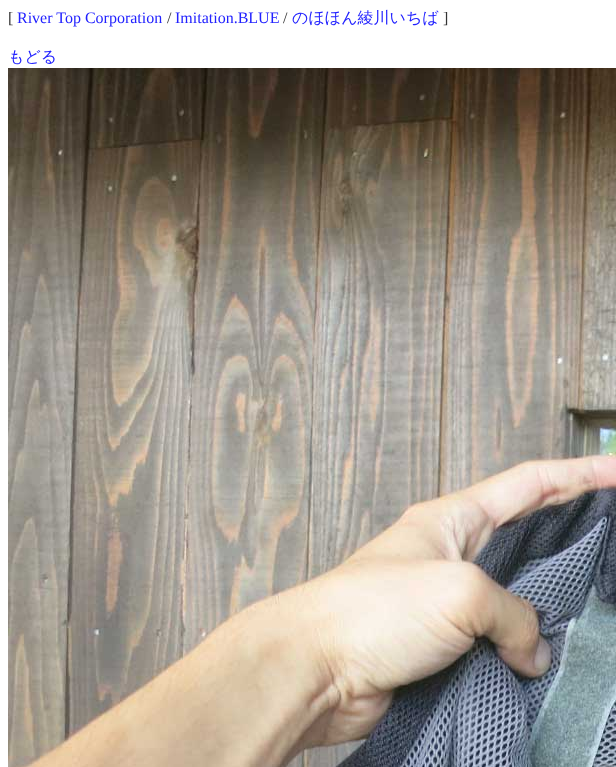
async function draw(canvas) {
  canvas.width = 616
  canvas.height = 767
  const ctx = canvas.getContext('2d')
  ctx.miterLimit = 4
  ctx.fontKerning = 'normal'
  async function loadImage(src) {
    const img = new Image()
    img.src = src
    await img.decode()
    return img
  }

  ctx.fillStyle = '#fff'
  ctx.fillRect(0, 0, 616, 767)
  ctx.font = '16px Liberation Serif'
  ctx.fillStyle = '#333'
  ctx.fillText('[', 8, 23)
  ctx.fillStyle = '#22f'
  ctx.fillText('River Top Corporation', 17, 23)
  ctx.fillStyle = '#333'
  ctx.fillText('/', 167, 23)
  ctx.fillStyle = '#22f'
  ctx.fillText('Imitation.BLUE', 175, 23)
  ctx.fillStyle = '#333'
  ctx.fillText('/', 283, 23)
  ctx.font = '500 16px WenQuanYi Zen Hei'
  ctx.fillStyle = '#22f'
  ctx.fillText('のほほん綾川いちば', 292, 23)
  ctx.font = '16px Liberation Serif'
  ctx.fillStyle = '#333'
  ctx.fillText(']', 443, 23)
  ctx.font = '500 16px WenQuanYi Zen Hei'
  ctx.fillStyle = '#22f'
  ctx.fillText('もどる', 8, 62)
  ctx.drawImage(await loadImage('image0.png'), 8, 68, 608, 699)
}

draw(document.querySelector('canvas'))
